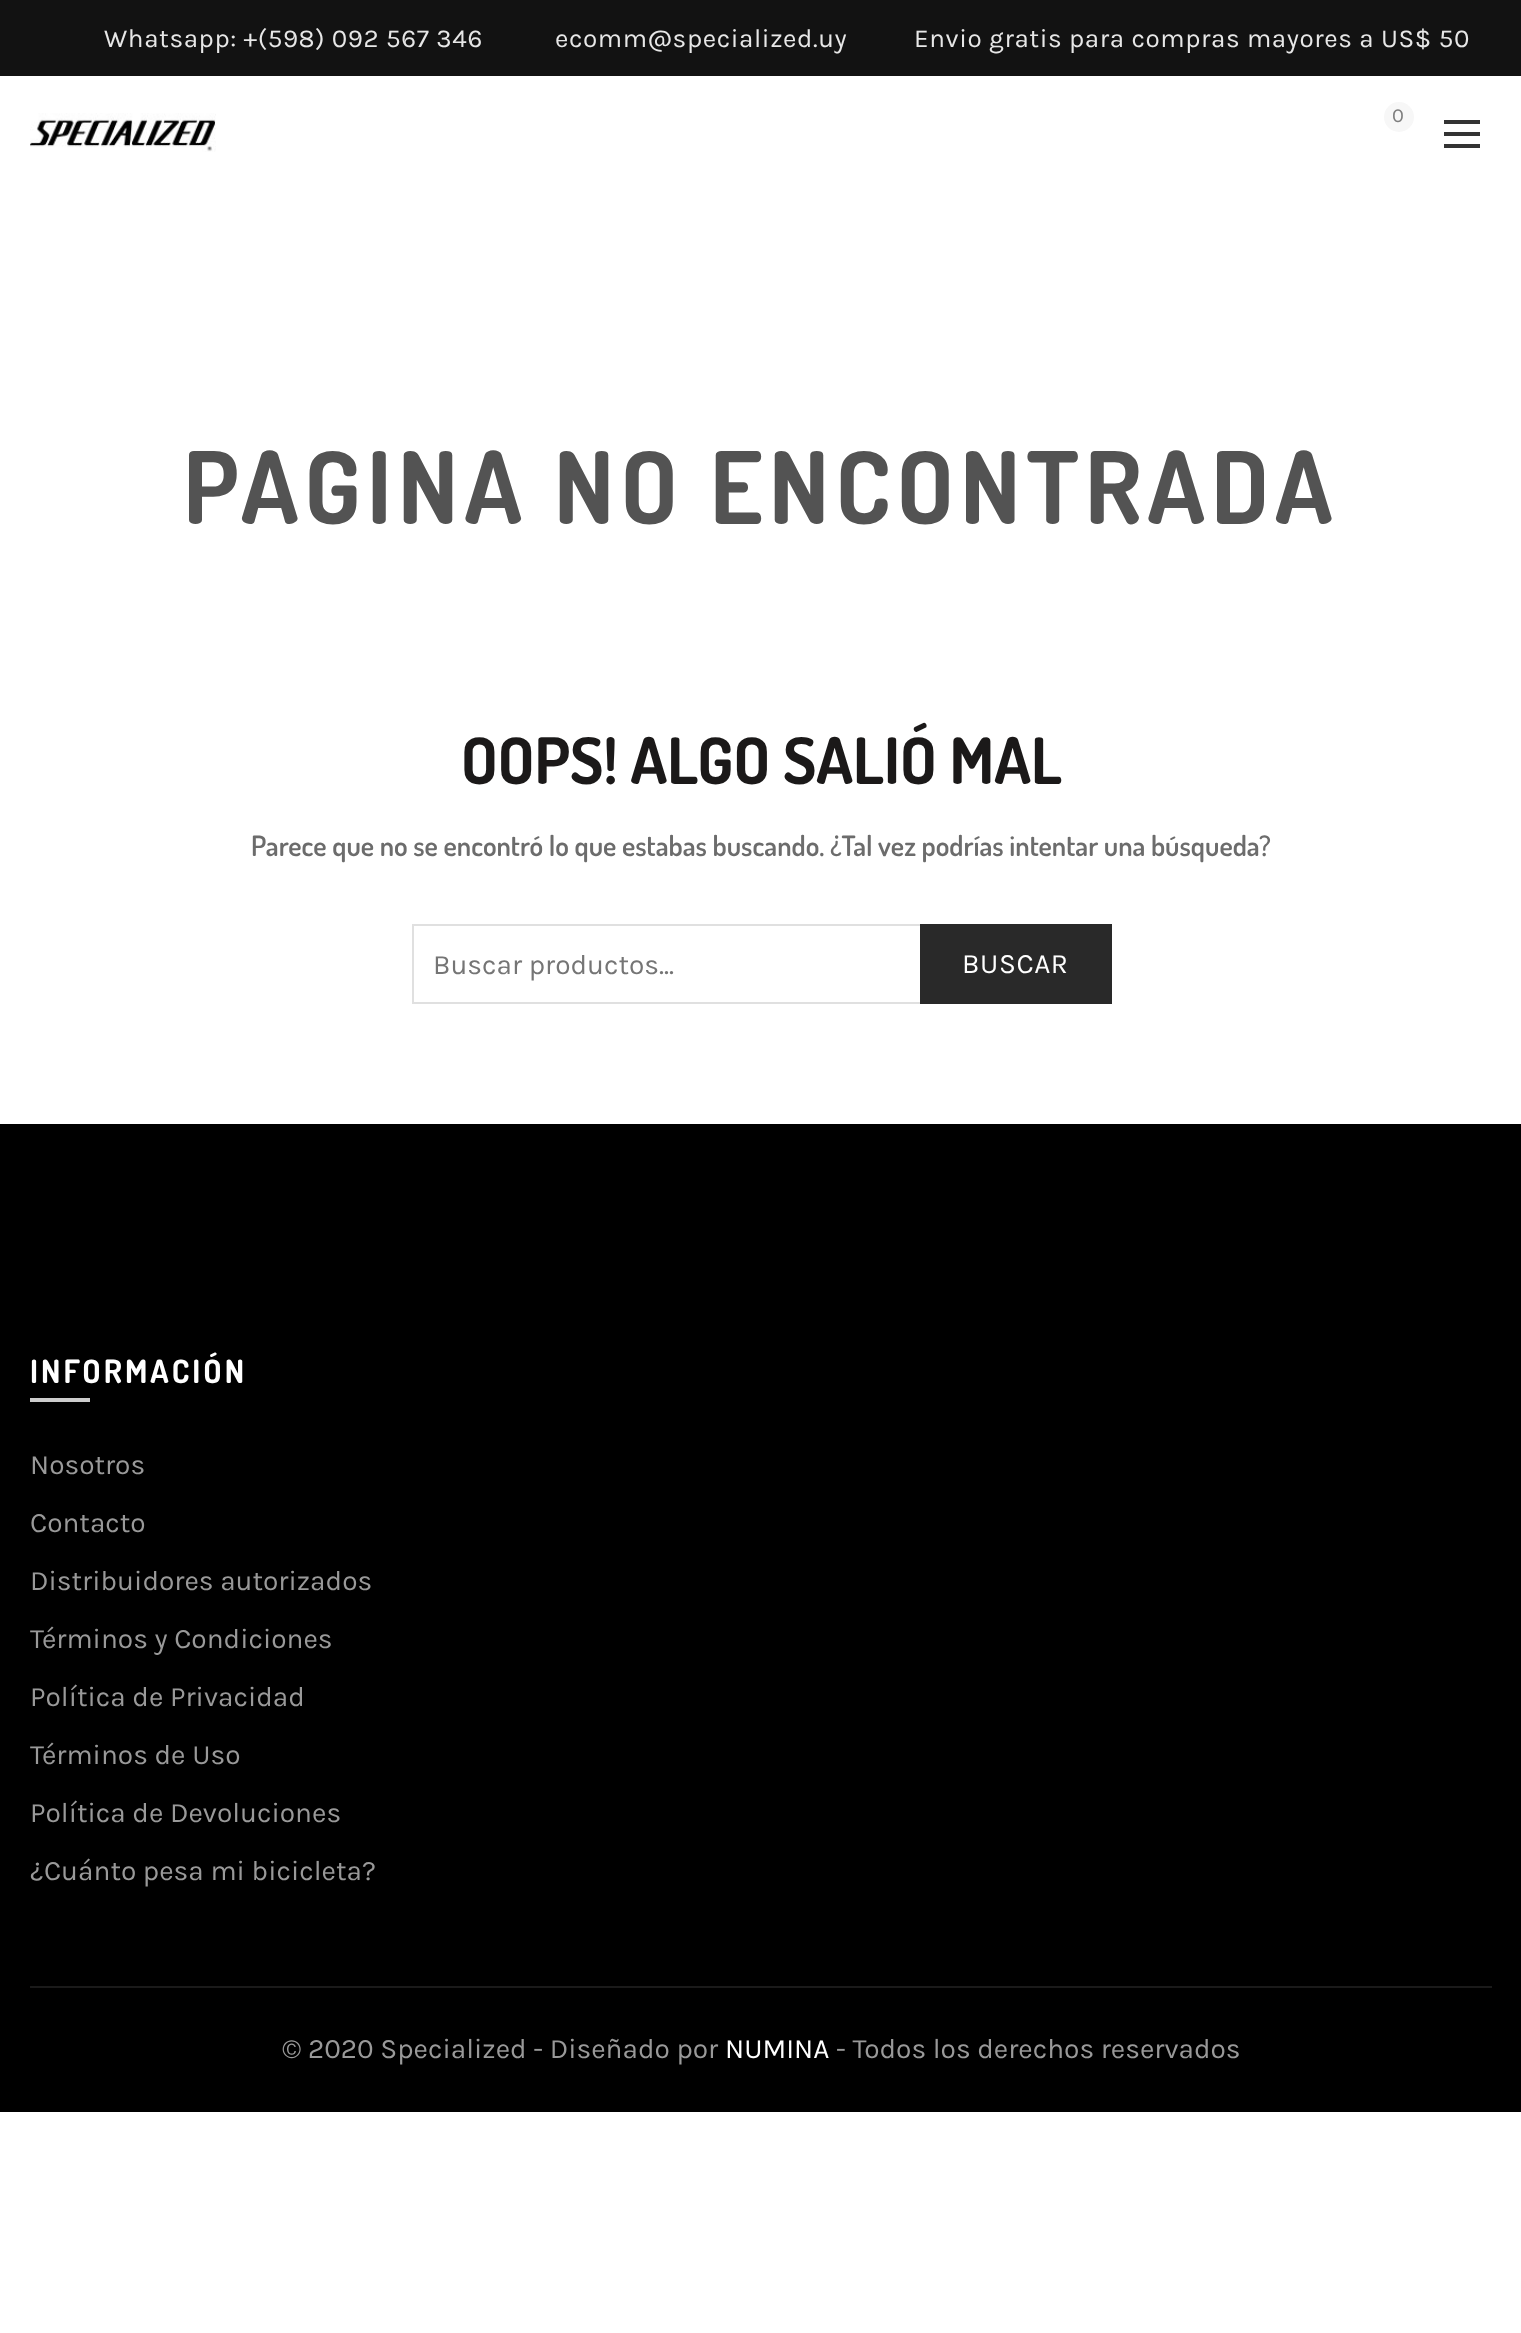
async function draw(canvas) {
  canvas.width = 1521
  canvas.height = 2333
  const ctx = canvas.getContext('2d')
  ctx.miterLimit = 4
  ctx.fontKerning = 'normal'
  async function loadImage(src) {
    const img = new Image()
    img.src = src
    await img.decode()
    return img
  }

  ctx.fillStyle = '#fff'
  ctx.fillRect(0, 0, 1521, 2333)
  ctx.fillStyle = '#121212'
  ctx.fillRect(0, 0, 1521, 76)
  ctx.letterSpacing = '0.6px'
  ctx.font = '26px Karla'
  ctx.fillStyle = '#e7e7e7'
  ctx.fillText('Whatsapp: +(598) 092 567 346', 104, 47)
  ctx.fillText('ecomm@specialized.uy', 555, 47)
  ctx.fillText('Envio gratis para compras mayores a US$ 50', 914, 47)
  ctx.drawImage(await loadImage('image0.png'), 30, 113, 186, 39)
  ctx.fillStyle = '#f7f7f7'
  ctx.beginPath()
  ctx.arc(1399, 117, 15, 0, 2 * Math.PI)
  ctx.fill()
  ctx.letterSpacing = '0px'
  ctx.font = '20px Karla'
  ctx.fillStyle = '#7e7e7e'
  ctx.fillText('0', 1392, 122)
  ctx.fillStyle = '#333'
  ctx.fillRect(1444, 132, 36, 4)
  ctx.fillRect(1444, 120, 36, 4)
  ctx.fillRect(1444, 144, 36, 4)
  ctx.letterSpacing = '6px'
  ctx.font = 'bold 100px Dosis'
  ctx.fillStyle = '#535353'
  ctx.fillText('PAGINA NO ENCONTRADA', 183, 524)
  ctx.letterSpacing = '0px'
  ctx.font = 'bold 64px Dosis'
  ctx.fillStyle = '#1b1919'
  ctx.fillText('OOPS! ALGO SALIÓ MAL', 461, 784)
  ctx.font = '600 28px Dosis'
  ctx.fillStyle = '#6c6c6c'
  ctx.fillText('Parece que no se encontró lo que estabas buscando. ¿Tal vez podrías intentar una búsqueda?', 251, 856)
  ctx.strokeStyle = '#e0e0e0'
  ctx.lineWidth = 2
  ctx.strokeRect(413, 925, 698, 78)
  ctx.font = '28px Karla'
  ctx.fillStyle = '#757575'
  ctx.fillText('Buscar productos...', 433, 974)
  ctx.fillStyle = '#292929'
  ctx.fillRect(920, 924, 192, 80)
  ctx.letterSpacing = '0.6px'
  ctx.fillStyle = '#fff'
  ctx.fillText('BUSCAR', 962, 973)
  ctx.fillStyle = '#000'
  ctx.fillRect(0, 1124, 1521, 988)
  ctx.letterSpacing = '3px'
  ctx.font = 'bold 32px Dosis'
  ctx.fillStyle = '#fff'
  ctx.fillText('INFORMACIÓN', 30, 1383)
  ctx.fillStyle = '#ccc'
  ctx.fillRect(30, 1398, 60, 4)
  ctx.letterSpacing = '0px'
  ctx.font = '28px Karla'
  ctx.fillStyle = '#999'
  ctx.fillText('Nosotros', 30, 1474)
  ctx.fillText('Contacto', 30, 1532)
  ctx.fillText('Distribuidores autorizados', 30, 1590)
  ctx.fillText('Términos y Condiciones', 30, 1648)
  ctx.fillText('Política de Privacidad', 30, 1706)
  ctx.fillText('Términos de Uso', 30, 1764)
  ctx.fillText('Política de Devoluciones', 30, 1822)
  ctx.fillText('¿Cuánto pesa mi bicicleta?', 30, 1880)
  ctx.fillStyle = '#1a1a1a'
  ctx.fillRect(30, 1986, 1462, 2)
  ctx.fillStyle = '#999'
  ctx.fillText('© 2020 Specialized - Diseñado por', 282, 2058)
  ctx.fillStyle = '#fff'
  ctx.fillText('NUMINA', 725, 2058)
  ctx.fillStyle = '#999'
  ctx.fillText('- Todos los derechos reservados', 836, 2058)
}

draw(document.querySelector('canvas'))
